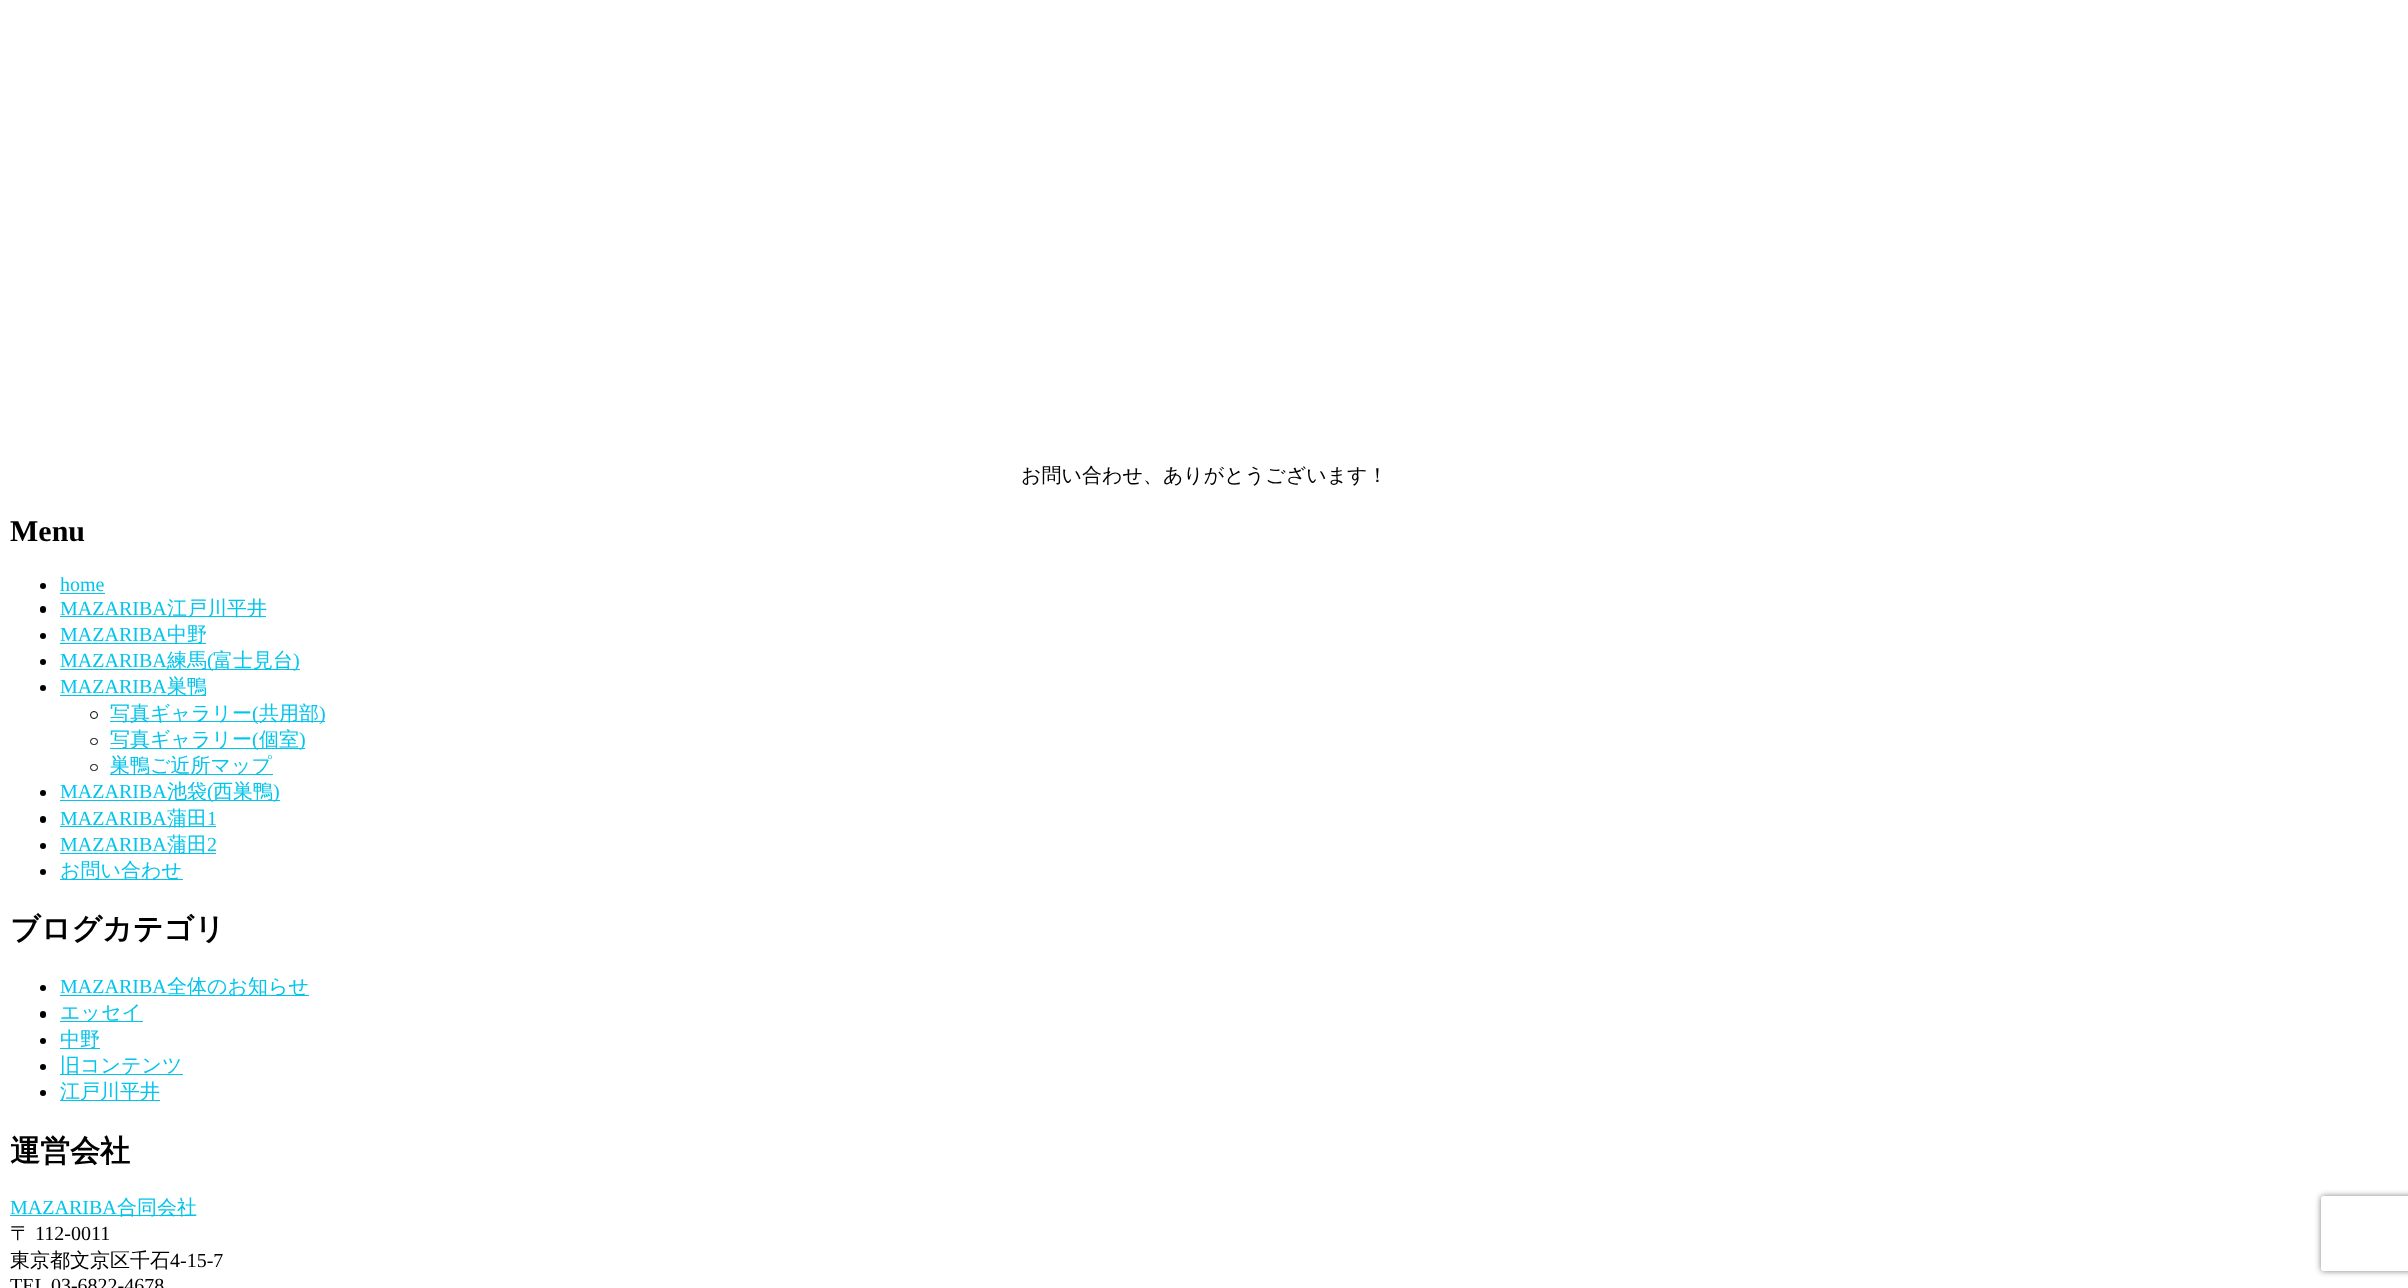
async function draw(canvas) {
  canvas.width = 2408
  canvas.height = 1288
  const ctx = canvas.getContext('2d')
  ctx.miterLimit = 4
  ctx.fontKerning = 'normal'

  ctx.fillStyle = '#fff'
  ctx.fillRect(0, 0, 2408, 1288)
  ctx.font = '500 20px WenQuanYi Zen Hei'
  ctx.fillStyle = '#000'
  ctx.fillText('お問い合わせ、ありがとうございます！', 1021, 482)
  ctx.font = 'bold 30px Liberation Serif'
  ctx.fillText('Menu', 10, 541)
  ctx.beginPath()
  ctx.arc(43, 586, 3, 0, 2 * Math.PI)
  ctx.fill()
  ctx.font = '20px Liberation Serif'
  ctx.fillStyle = '#03c4eb'
  ctx.fillText('home', 60, 591)
  ctx.fillRect(60, 593, 45, 1)
  ctx.fillStyle = '#000'
  ctx.beginPath()
  ctx.roundRect(40, 606, 6, 7, 3)
  ctx.fill()
  ctx.fillStyle = '#03c4eb'
  ctx.fillText('MAZARIBA', 60, 615)
  ctx.fillRect(60, 616, 206, 1)
  ctx.font = '500 20px WenQuanYi Zen Hei'
  ctx.fillText('江戸川平井', 167, 615)
  ctx.fillStyle = '#000'
  ctx.beginPath()
  ctx.arc(43, 636, 3, 0, 2 * Math.PI)
  ctx.fill()
  ctx.font = '20px Liberation Serif'
  ctx.fillStyle = '#03c4eb'
  ctx.fillText('MAZARIBA', 60, 641)
  ctx.fillRect(60, 643, 146, 1)
  ctx.font = '500 20px WenQuanYi Zen Hei'
  ctx.fillText('中野', 167, 641)
  ctx.fillStyle = '#000'
  ctx.beginPath()
  ctx.arc(43, 662, 3, 0, 2 * Math.PI)
  ctx.fill()
  ctx.font = '20px Liberation Serif'
  ctx.fillStyle = '#03c4eb'
  ctx.fillText('MAZARIBA', 60, 667)
  ctx.fillRect(60, 669, 240, 1)
  ctx.font = '500 20px WenQuanYi Zen Hei'
  ctx.fillText('練馬', 167, 667)
  ctx.font = '20px Liberation Serif'
  ctx.fillText('(', 207, 667)
  ctx.font = '500 20px WenQuanYi Zen Hei'
  ctx.fillText('富士見台', 213, 667)
  ctx.font = '20px Liberation Serif'
  ctx.fillText(')', 293, 667)
  ctx.fillStyle = '#000'
  ctx.beginPath()
  ctx.arc(43, 688, 3, 0, 2 * Math.PI)
  ctx.fill()
  ctx.fillStyle = '#03c4eb'
  ctx.fillText('MAZARIBA', 60, 693)
  ctx.fillRect(60, 695, 146, 1)
  ctx.font = '500 20px WenQuanYi Zen Hei'
  ctx.fillText('巣鴨', 167, 693)
  ctx.beginPath()
  ctx.arc(94, 715, 3.5, 0, 2 * Math.PI)
  ctx.strokeStyle = '#000'
  ctx.stroke()
  ctx.fillRect(110, 721, 215, 1)
  ctx.fillText('写真ギャラリー', 110, 720)
  ctx.font = '20px Liberation Serif'
  ctx.fillText('(', 252, 720)
  ctx.font = '500 20px WenQuanYi Zen Hei'
  ctx.fillText('共用部', 259, 720)
  ctx.font = '20px Liberation Serif'
  ctx.fillText(')', 319, 720)
  ctx.beginPath()
  ctx.roundRect(90.5, 738.5, 7, 6, 3)
  ctx.stroke()
  ctx.fillRect(110, 748, 195, 1)
  ctx.font = '500 20px WenQuanYi Zen Hei'
  ctx.fillText('写真ギャラリー', 110, 746)
  ctx.font = '20px Liberation Serif'
  ctx.fillText('(', 252, 746)
  ctx.font = '500 20px WenQuanYi Zen Hei'
  ctx.fillText('個室', 259, 746)
  ctx.font = '20px Liberation Serif'
  ctx.fillText(')', 299, 746)
  ctx.beginPath()
  ctx.roundRect(90.5, 764.5, 7, 6, 3)
  ctx.stroke()
  ctx.fillRect(110, 774, 163, 1)
  ctx.font = '500 20px WenQuanYi Zen Hei'
  ctx.fillText('巣鴨ご近所マップ', 110, 772)
  ctx.fillStyle = '#000'
  ctx.beginPath()
  ctx.arc(43, 793, 3, 0, 2 * Math.PI)
  ctx.fill()
  ctx.font = '20px Liberation Serif'
  ctx.fillStyle = '#03c4eb'
  ctx.fillText('MAZARIBA', 60, 798)
  ctx.fillRect(60, 800, 220, 1)
  ctx.font = '500 20px WenQuanYi Zen Hei'
  ctx.fillText('池袋', 167, 798)
  ctx.font = '20px Liberation Serif'
  ctx.fillText('(', 207, 798)
  ctx.font = '500 20px WenQuanYi Zen Hei'
  ctx.fillText('西巣鴨', 213, 798)
  ctx.font = '20px Liberation Serif'
  ctx.fillText(')', 273, 798)
  ctx.fillStyle = '#000'
  ctx.beginPath()
  ctx.roundRect(40, 816, 6, 7, 3)
  ctx.fill()
  ctx.fillStyle = '#03c4eb'
  ctx.fillText('MAZARIBA', 60, 825)
  ctx.fillRect(60, 826, 156, 1)
  ctx.font = '500 20px WenQuanYi Zen Hei'
  ctx.fillText('蒲田', 167, 825)
  ctx.font = '20px Liberation Serif'
  ctx.fillText('1', 207, 825)
  ctx.fillStyle = '#000'
  ctx.beginPath()
  ctx.arc(43, 846, 3, 0, 2 * Math.PI)
  ctx.fill()
  ctx.fillStyle = '#03c4eb'
  ctx.fillText('MAZARIBA', 60, 851)
  ctx.fillRect(60, 853, 156, 1)
  ctx.font = '500 20px WenQuanYi Zen Hei'
  ctx.fillText('蒲田', 167, 851)
  ctx.font = '20px Liberation Serif'
  ctx.fillText('2', 207, 851)
  ctx.fillStyle = '#000'
  ctx.beginPath()
  ctx.arc(43, 872, 3, 0, 2 * Math.PI)
  ctx.fill()
  ctx.fillStyle = '#03c4eb'
  ctx.fillRect(60, 879, 123, 1)
  ctx.font = '500 20px WenQuanYi Zen Hei'
  ctx.fillText('お問い合わせ', 60, 877)
  ctx.font = 'bold 30px WenQuanYi Zen Hei'
  ctx.fillStyle = '#000'
  ctx.fillText('ブログカテゴリ', 10, 939)
  ctx.beginPath()
  ctx.arc(43, 988, 3, 0, 2 * Math.PI)
  ctx.fill()
  ctx.font = '20px Liberation Serif'
  ctx.fillStyle = '#03c4eb'
  ctx.fillText('MAZARIBA', 60, 993)
  ctx.fillRect(60, 995, 249, 1)
  ctx.font = '500 20px WenQuanYi Zen Hei'
  ctx.fillText('全体のお知らせ', 167, 993)
  ctx.fillStyle = '#000'
  ctx.beginPath()
  ctx.roundRect(40, 1011, 6, 7, 3)
  ctx.fill()
  ctx.fillStyle = '#03c4eb'
  ctx.fillRect(60, 1021, 83, 1)
  ctx.fillText('エッセイ', 60, 1019)
  ctx.fillStyle = '#000'
  ctx.beginPath()
  ctx.arc(43, 1041, 3, 0, 2 * Math.PI)
  ctx.fill()
  ctx.fillStyle = '#03c4eb'
  ctx.fillRect(60, 1048, 40, 1)
  ctx.fillText('中野', 60, 1046)
  ctx.fillStyle = '#000'
  ctx.beginPath()
  ctx.arc(43, 1067, 3, 0, 2 * Math.PI)
  ctx.fill()
  ctx.fillStyle = '#03c4eb'
  ctx.fillRect(60, 1074, 123, 1)
  ctx.fillText('旧コンテンツ', 60, 1072)
  ctx.fillStyle = '#000'
  ctx.beginPath()
  ctx.arc(43, 1093, 3, 0, 2 * Math.PI)
  ctx.fill()
  ctx.fillStyle = '#03c4eb'
  ctx.fillRect(60, 1100, 100, 1)
  ctx.fillText('江戸川平井', 60, 1098)
  ctx.font = 'bold 30px WenQuanYi Zen Hei'
  ctx.fillStyle = '#000'
  ctx.fillText('運営会社', 10, 1161)
  ctx.font = '20px Liberation Serif'
  ctx.fillStyle = '#03c4eb'
  ctx.fillText('MAZARIBA', 10, 1214)
  ctx.fillRect(10, 1215, 186, 1)
  ctx.font = '500 20px WenQuanYi Zen Hei'
  ctx.fillText('合同会社', 117, 1214)
  ctx.fillStyle = '#000'
  ctx.fillText('〒', 10, 1240)
  ctx.font = '20px Liberation Serif'
  ctx.fillText('112-0011', 35, 1240)
  ctx.font = '500 20px WenQuanYi Zen Hei'
  ctx.fillText('東京都文京区千石', 10, 1267)
  ctx.font = '20px Liberation Serif'
  ctx.fillText('4-15-7', 170, 1267)
  ctx.fillText('TEL 03-6822-4678', 10, 1292)
  ctx.save()
  ctx.beginPath()
  ctx.moveTo(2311, 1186)
  ctx.lineTo(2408, 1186)
  ctx.lineTo(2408, 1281)
  ctx.lineTo(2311, 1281)
  ctx.closePath()
  ctx.moveTo(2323.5, 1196)
  ctx.lineTo(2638.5, 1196)
  ctx.bezierCurveTo(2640, 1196, 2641, 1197, 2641, 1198.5)
  ctx.lineTo(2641, 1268.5)
  ctx.bezierCurveTo(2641, 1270, 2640, 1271, 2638.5, 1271)
  ctx.lineTo(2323.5, 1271)
  ctx.bezierCurveTo(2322, 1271, 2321, 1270, 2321, 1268.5)
  ctx.lineTo(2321, 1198.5)
  ctx.bezierCurveTo(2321, 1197, 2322, 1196, 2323.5, 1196)
  ctx.closePath()
  ctx.clip('evenodd')
  ctx.fillStyle = '#808080'
  ctx.filter = 'blur(3px)'
  ctx.beginPath()
  ctx.roundRect(2321, 1196, 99, 75, 2.5)
  ctx.fill()
  ctx.filter = 'none'
  ctx.restore()
}

draw(document.querySelector('canvas'))
